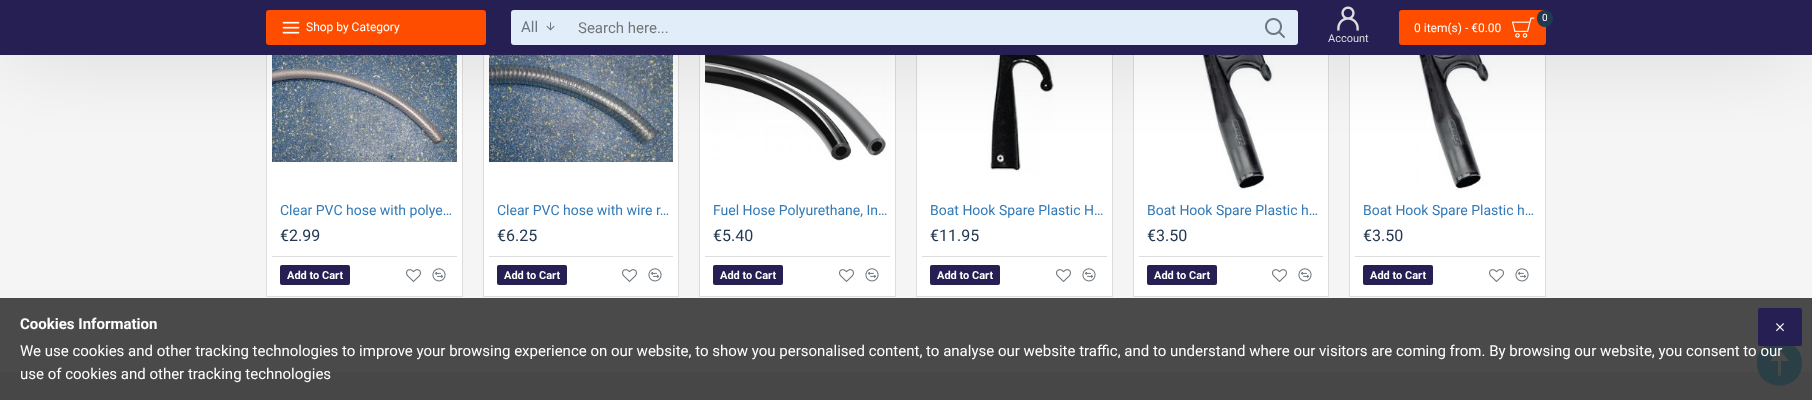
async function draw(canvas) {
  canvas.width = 1812
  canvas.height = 400
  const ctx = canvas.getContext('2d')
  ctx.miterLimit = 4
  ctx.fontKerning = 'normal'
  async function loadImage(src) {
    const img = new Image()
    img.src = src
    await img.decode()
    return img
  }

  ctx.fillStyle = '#f5f5f5'
  ctx.fillRect(0, 0, 1812, 400)
  ctx.fillStyle = '#fff'
  ctx.fillRect(267, 55, 195, 241)
  ctx.strokeStyle = '#ddd'
  ctx.strokeRect(266.5, 2.5, 196, 294)
  ctx.drawImage(await loadImage('image5.png'), 272, 55, 185, 108)
  ctx.fillRect(484, 55, 194, 241)
  ctx.strokeRect(483.5, 2.5, 195, 294)
  ctx.drawImage(await loadImage('image8.png'), 489, 55, 184, 108)
  ctx.fillRect(700, 55, 195, 241)
  ctx.strokeRect(699.5, 2.5, 196, 294)
  ctx.drawImage(await loadImage('image9.png'), 705, 55, 182, 107)
  ctx.fillRect(917, 55, 195, 241)
  ctx.strokeRect(916.5, 2.5, 196, 294)
  ctx.drawImage(await loadImage('image10.png'), 987, 55, 67, 119)
  ctx.fillRect(1134, 55, 194, 241)
  ctx.strokeRect(1133.5, 2.5, 195, 294)
  ctx.drawImage(await loadImage('image11.png'), 1192, 55, 82, 136)
  ctx.fillRect(1350, 55, 195, 241)
  ctx.strokeRect(1349.5, 2.5, 196, 294)
  ctx.drawImage(await loadImage('image12.png'), 1409, 55, 82, 135)
  ctx.fillStyle = '#00000033'
  ctx.filter = 'blur(42.5px)'
  ctx.beginPath()
  ctx.rect(10, 10, 1792, 35)
  ctx.fill()
  ctx.filter = 'none'
  ctx.fillStyle = '#251f54'
  ctx.fillRect(0, 0, 1812, 55)
  ctx.fillStyle = '#ff4d00'
  ctx.beginPath()
  ctx.roundRect(266, 10, 220, 35, 3)
  ctx.fill()
  ctx.drawImage(await loadImage('image0.png'), 282, 21, 18, 13)
  ctx.font = '12px Roboto'
  ctx.fillStyle = '#fff'
  ctx.fillText('Shop by Category', 306, 31)
  ctx.fillStyle = '#e1eefa'
  ctx.beginPath()
  ctx.roundRect(511, 10, 55, 35, [3, 0, 0, 3])
  ctx.fill()
  ctx.font = '15px Roboto'
  ctx.fillStyle = '#6d767d'
  ctx.fillText('All', 521, 32)
  ctx.drawImage(await loadImage('image1.png'), 546, 22, 9, 9)
  ctx.fillStyle = '#e1eefa'
  ctx.fillRect(566, 10, 687, 35)
  ctx.fillStyle = '#757575'
  ctx.fillText('Search here...', 578, 33)
  ctx.fillStyle = '#e1eefa'
  ctx.beginPath()
  ctx.roundRect(1253, 10, 45, 35, [0, 3, 3, 0])
  ctx.fill()
  ctx.drawImage(await loadImage('image2.png'), 1265, 18, 20, 20)
  ctx.fillStyle = '#ff4d00'
  ctx.beginPath()
  ctx.roundRect(1399, 10, 147, 35, 3)
  ctx.fill()
  ctx.font = '12px Roboto'
  ctx.fillStyle = '#fff'
  ctx.fillText('0 item(s) - €0.00', 1414, 32)
  ctx.drawImage(await loadImage('image3.png'), 1512, 17, 23, 21)
  ctx.fillStyle = '#233851'
  ctx.beginPath()
  ctx.roundRect(1537, 10, 16, 17, 8)
  ctx.fill()
  ctx.font = '10px Roboto'
  ctx.fillStyle = '#fff'
  ctx.fillText('0', 1542, 21)
  ctx.drawImage(await loadImage('image4.png'), 1337, 6, 22, 25)
  ctx.font = '11px Roboto'
  ctx.fillStyle = '#ddd'
  ctx.fillText('Account', 1328, 42)
  ctx.fillStyle = '#4a4a4a'
  ctx.fillRect(0, 298, 1812, 74)
  ctx.font = '14px Roboto'
  ctx.fillStyle = '#337ab7'
  ctx.fillText('Clear PVC hose with polye…', 280, 215)
  ctx.font = '16px Roboto'
  ctx.fillStyle = '#233851'
  ctx.fillText('€2.99', 280, 241)
  ctx.fillStyle = '#ddd'
  ctx.fillRect(272, 256, 185, 1)
  ctx.fillStyle = '#251f54'
  ctx.beginPath()
  ctx.roundRect(280, 265, 70, 20, 2)
  ctx.fill()
  ctx.font = 'bold 11px Roboto'
  ctx.fillStyle = '#fff'
  ctx.fillText('Add to Cart', 287, 279)
  ctx.drawImage(await loadImage('image6.png'), 406, 269, 15, 13)
  ctx.drawImage(await loadImage('image7.png'), 432, 268, 14, 14)
  ctx.font = '14px Roboto'
  ctx.fillStyle = '#337ab7'
  ctx.fillText('Clear PVC hose with wire r…', 497, 215)
  ctx.font = '16px Roboto'
  ctx.fillStyle = '#233851'
  ctx.fillText('€6.25', 497, 241)
  ctx.fillStyle = '#ddd'
  ctx.fillRect(489, 256, 184, 1)
  ctx.fillStyle = '#251f54'
  ctx.beginPath()
  ctx.roundRect(497, 265, 70, 20, 2)
  ctx.fill()
  ctx.font = 'bold 11px Roboto'
  ctx.fillStyle = '#fff'
  ctx.fillText('Add to Cart', 504, 279)
  ctx.drawImage(await loadImage('image6.png'), 622, 269, 15, 13)
  ctx.drawImage(await loadImage('image7.png'), 648, 268, 14, 14)
  ctx.font = '14px Roboto'
  ctx.fillStyle = '#337ab7'
  ctx.fillText('Fuel Hose Polyurethane, In…', 713, 215)
  ctx.font = '16px Roboto'
  ctx.fillStyle = '#233851'
  ctx.fillText('€5.40', 713, 241)
  ctx.fillStyle = '#ddd'
  ctx.fillRect(705, 256, 185, 1)
  ctx.fillStyle = '#251f54'
  ctx.beginPath()
  ctx.roundRect(713, 265, 70, 20, 2)
  ctx.fill()
  ctx.font = 'bold 11px Roboto'
  ctx.fillStyle = '#fff'
  ctx.fillText('Add to Cart', 720, 279)
  ctx.drawImage(await loadImage('image6.png'), 839, 269, 15, 13)
  ctx.drawImage(await loadImage('image7.png'), 865, 268, 14, 14)
  ctx.font = '14px Roboto'
  ctx.fillStyle = '#337ab7'
  ctx.fillText('Boat Hook Spare Plastic H…', 930, 215)
  ctx.font = '16px Roboto'
  ctx.fillStyle = '#233851'
  ctx.fillText('€11.95', 930, 241)
  ctx.fillStyle = '#ddd'
  ctx.fillRect(922, 256, 185, 1)
  ctx.fillStyle = '#251f54'
  ctx.beginPath()
  ctx.roundRect(930, 265, 70, 20, 2)
  ctx.fill()
  ctx.font = 'bold 11px Roboto'
  ctx.fillStyle = '#fff'
  ctx.fillText('Add to Cart', 937, 279)
  ctx.drawImage(await loadImage('image6.png'), 1056, 269, 15, 13)
  ctx.drawImage(await loadImage('image7.png'), 1082, 268, 14, 14)
  ctx.font = '14px Roboto'
  ctx.fillStyle = '#337ab7'
  ctx.fillText('Boat Hook Spare Plastic h…', 1147, 215)
  ctx.font = '16px Roboto'
  ctx.fillStyle = '#233851'
  ctx.fillText('€3.50', 1147, 241)
  ctx.fillStyle = '#ddd'
  ctx.fillRect(1139, 256, 184, 1)
  ctx.fillStyle = '#251f54'
  ctx.beginPath()
  ctx.roundRect(1147, 265, 70, 20, 2)
  ctx.fill()
  ctx.font = 'bold 11px Roboto'
  ctx.fillStyle = '#fff'
  ctx.fillText('Add to Cart', 1154, 279)
  ctx.drawImage(await loadImage('image6.png'), 1272, 269, 15, 13)
  ctx.drawImage(await loadImage('image7.png'), 1298, 268, 14, 14)
  ctx.font = '14px Roboto'
  ctx.fillStyle = '#337ab7'
  ctx.fillText('Boat Hook Spare Plastic h…', 1363, 215)
  ctx.font = '16px Roboto'
  ctx.fillStyle = '#233851'
  ctx.fillText('€3.50', 1363, 241)
  ctx.fillStyle = '#ddd'
  ctx.fillRect(1355, 256, 185, 1)
  ctx.fillStyle = '#251f54'
  ctx.beginPath()
  ctx.roundRect(1363, 265, 70, 20, 2)
  ctx.fill()
  ctx.font = 'bold 11px Roboto'
  ctx.fillStyle = '#fff'
  ctx.fillText('Add to Cart', 1370, 279)
  ctx.drawImage(await loadImage('image6.png'), 1489, 269, 15, 13)
  ctx.drawImage(await loadImage('image7.png'), 1515, 268, 14, 14)
  ctx.fillStyle = '#474747'
  ctx.fillRect(0, 372, 1812, 28)
  ctx.fillStyle = '#2b3f47'
  ctx.beginPath()
  ctx.moveTo(1757, 363)
  ctx.bezierCurveTo(1757, 393, 1802, 393, 1802, 363)
  ctx.bezierCurveTo(1802, 334, 1757, 334, 1757, 363)
  ctx.closePath()
  ctx.moveTo(1789, 361)
  ctx.lineTo(1781, 361)
  ctx.lineTo(1781, 376)
  ctx.lineTo(1778, 376)
  ctx.lineTo(1778, 361)
  ctx.lineTo(1770, 361)
  ctx.lineTo(1780, 350)
  ctx.closePath()
  ctx.fill()
  ctx.font = '15px Roboto'
  ctx.fillStyle = '#fff'
  ctx.fillText('We use cookies and other tracking technologies to improve your browsing experience on our website, to show you personalised content, to analyse our website traffic, and to understand where our visitors are coming from. By browsing our website, you consent to our', 20, 356)
  ctx.fillStyle = '#251f54'
  ctx.beginPath()
  ctx.roundRect(1758, 308, 44, 38, 2)
  ctx.fill()
  ctx.drawImage(await loadImage('image13.png'), 1776, 323, 8, 9)
  ctx.font = 'bold 15px Roboto'
  ctx.fillStyle = '#fff'
  ctx.fillText('Cookies Information', 20, 329)
  ctx.font = '15px Roboto'
  ctx.fillText('use of cookies and other tracking technologies', 20, 379)
}

draw(document.querySelector('canvas'))
